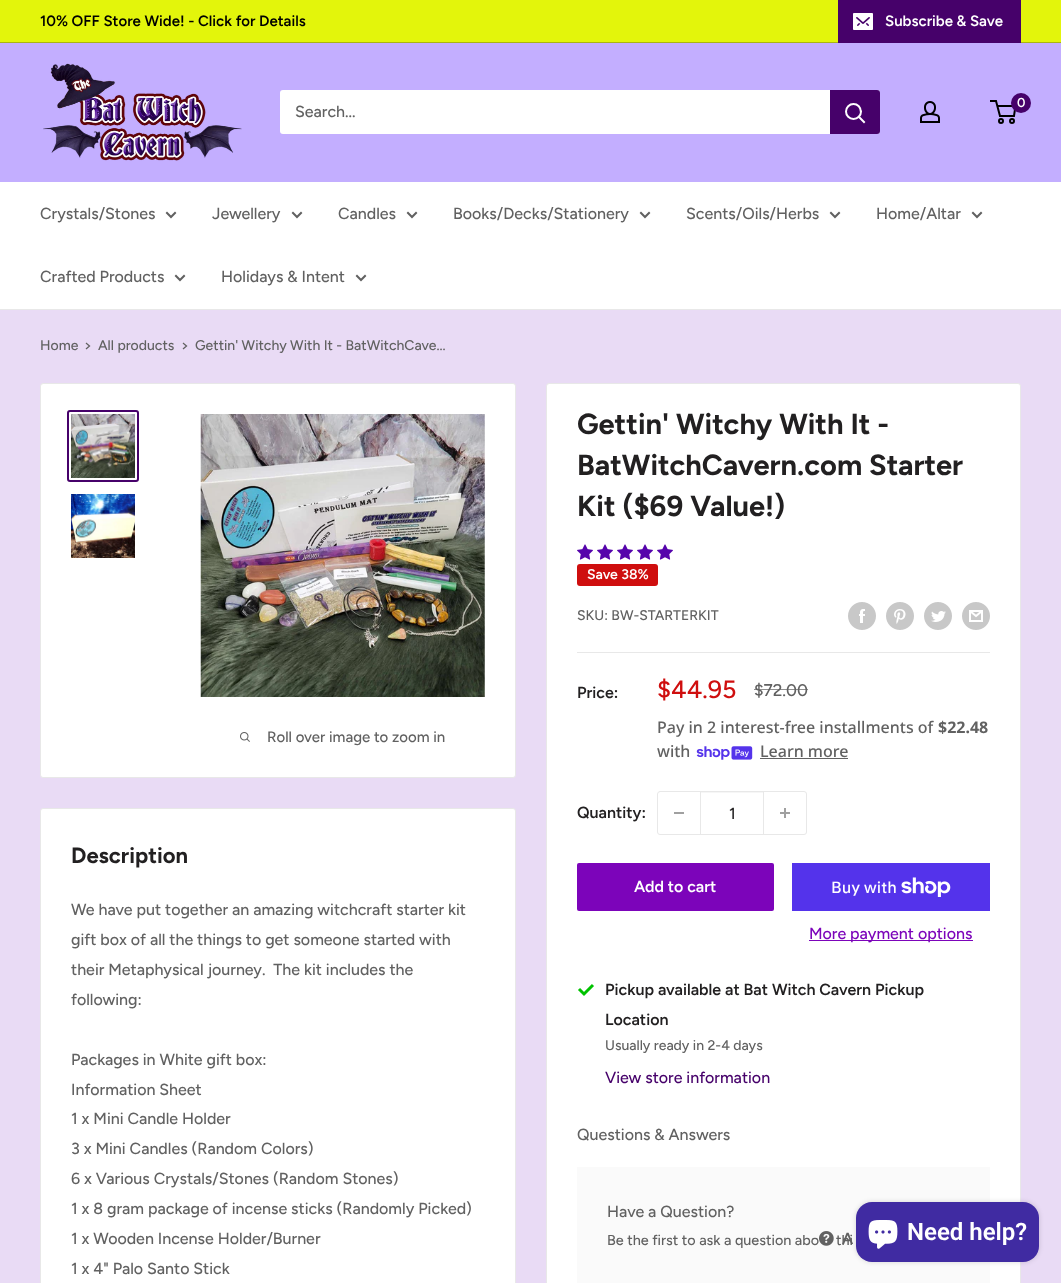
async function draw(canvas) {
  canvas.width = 1061
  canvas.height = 1283
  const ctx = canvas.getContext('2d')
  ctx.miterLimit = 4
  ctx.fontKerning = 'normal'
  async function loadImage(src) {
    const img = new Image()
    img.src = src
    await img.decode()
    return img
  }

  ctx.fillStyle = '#e9dbf5'
  ctx.fillRect(0, 0, 1061, 1283)
  ctx.fillStyle = '#e3f50b'
  ctx.fillRect(0, 0, 1061, 42)
  ctx.fillStyle = '#a9b512'
  ctx.fillRect(0, 42, 1061, 1)
  ctx.font = '600 15px Figtree'
  ctx.fillStyle = '#000'
  ctx.fillText('10% OFF Store Wide! - Click for Details', 40, 26)
  ctx.fillStyle = '#46016a'
  ctx.fillRect(838, 0, 183, 43)
  ctx.drawImage(await loadImage('image0.png'), 853, 13, 20, 17)
  ctx.fillStyle = '#fff'
  ctx.fillText('Subscribe & Save', 885, 26)
  ctx.fillStyle = '#c3aeff'
  ctx.fillRect(0, 43, 1061, 139)
  ctx.drawImage(await loadImage('image1.png'), 43, 63, 199, 98)
  ctx.drawImage(await loadImage('image2.png'), 920, 101, 20, 22)
  ctx.beginPath()
  ctx.arc(1001, 121, 2, 0, 2 * Math.PI)
  ctx.strokeStyle = '#000'
  ctx.lineWidth = 2
  ctx.stroke()
  ctx.beginPath()
  ctx.arc(1012, 121, 2, 0, 2 * Math.PI)
  ctx.stroke()
  ctx.beginPath()
  ctx.moveTo(997.5, 106)
  ctx.lineTo(1015.5, 106)
  ctx.lineTo(1014, 116)
  ctx.lineTo(1000, 116)
  ctx.lineTo(996, 101)
  ctx.lineTo(990, 101)
  ctx.stroke()
  ctx.fillStyle = '#46016a'
  ctx.beginPath()
  ctx.arc(1021, 103, 10, 0, 2 * Math.PI)
  ctx.fill()
  ctx.font = '600 13px Figtree'
  ctx.fillStyle = '#fff'
  ctx.fillText('0', 1017, 107)
  ctx.beginPath()
  ctx.roundRect(280, 90, 600, 44, 3)
  ctx.fill()
  ctx.font = '500 16px Figtree'
  ctx.fillStyle = '#616161'
  ctx.fillText('Search...', 295, 117)
  ctx.fillStyle = '#46016a'
  ctx.beginPath()
  ctx.roundRect(830, 90, 50, 44, [0, 3, 3, 0])
  ctx.fill()
  ctx.beginPath()
  ctx.moveTo(864, 122)
  ctx.lineTo(859, 117)
  ctx.strokeStyle = '#fff'
  ctx.lineCap = 'square'
  ctx.stroke()
  ctx.beginPath()
  ctx.arc(853.5, 111.5, 7.5, 0, 2 * Math.PI)
  ctx.stroke()
  ctx.fillStyle = '#fff'
  ctx.fillRect(0, 182, 1061, 127)
  ctx.fillStyle = '#e8e8e8'
  ctx.fillRect(0, 309, 1061, 1)
  ctx.fillStyle = '#616161'
  ctx.fillText('Crystals/Stones', 40, 219)
  ctx.beginPath()
  ctx.moveTo(175, 213)
  ctx.lineTo(171, 217)
  ctx.lineTo(167, 213)
  ctx.strokeStyle = '#616161'
  ctx.stroke()
  ctx.fillText('Jewellery', 212, 219)
  ctx.beginPath()
  ctx.moveTo(301, 213)
  ctx.lineTo(297, 217)
  ctx.lineTo(293, 213)
  ctx.stroke()
  ctx.fillText('Candles', 338, 219)
  ctx.beginPath()
  ctx.moveTo(416, 213)
  ctx.lineTo(412, 217)
  ctx.lineTo(408, 213)
  ctx.stroke()
  ctx.fillText('Books/Decks/Stationery', 453, 219)
  ctx.beginPath()
  ctx.moveTo(649, 213)
  ctx.lineTo(645, 217)
  ctx.lineTo(641, 213)
  ctx.stroke()
  ctx.fillText('Scents/Oils/Herbs', 686, 219)
  ctx.beginPath()
  ctx.moveTo(839, 213)
  ctx.lineTo(835, 217)
  ctx.lineTo(831, 213)
  ctx.stroke()
  ctx.fillText('Home/Altar', 876, 219)
  ctx.beginPath()
  ctx.moveTo(981, 213)
  ctx.lineTo(977, 217)
  ctx.lineTo(973, 213)
  ctx.stroke()
  ctx.fillText('Crafted Products', 40, 282)
  ctx.beginPath()
  ctx.moveTo(184, 276)
  ctx.lineTo(180, 280)
  ctx.lineTo(176, 276)
  ctx.stroke()
  ctx.fillText('Holidays & Intent', 221, 282)
  ctx.beginPath()
  ctx.moveTo(365, 276)
  ctx.lineTo(361, 280)
  ctx.lineTo(357, 276)
  ctx.stroke()
  ctx.font = '500 14px Figtree'
  ctx.fillText('Home', 40, 350)
  ctx.beginPath()
  ctx.moveTo(86.5, 343.5)
  ctx.lineTo(89.5, 346)
  ctx.lineTo(86.5, 348.5)
  ctx.lineWidth = 1.3
  ctx.stroke()
  ctx.fillText('All products', 98, 350)
  ctx.beginPath()
  ctx.moveTo(183.5, 343.5)
  ctx.lineTo(186.5, 346)
  ctx.lineTo(183.5, 348.5)
  ctx.stroke()
  ctx.fillText('Gettin\' Witchy With It - BatWitchCave...', 195, 350)
  ctx.fillStyle = '#fff'
  ctx.beginPath()
  ctx.roundRect(40.5, 383.5, 475, 394, 2.5)
  ctx.fill()
  ctx.strokeStyle = '#e8e8e8'
  ctx.lineWidth = 1
  ctx.stroke()
  ctx.beginPath()
  ctx.roundRect(68, 411, 70, 70, 2)
  ctx.strokeStyle = '#46016a'
  ctx.lineWidth = 2
  ctx.stroke()
  ctx.drawImage(await loadImage('image3.png'), 71, 414, 64, 64)
  ctx.drawImage(await loadImage('image4.png'), 71, 494, 64, 64)
  ctx.drawImage(await loadImage('image5.png'), 200, 414, 285, 283)
  ctx.drawImage(await loadImage('image6.png'), 240, 732, 10, 10)
  ctx.font = '500 15px Figtree'
  ctx.fillStyle = '#616161'
  ctx.fillText('Roll over image to zoom in', 267, 742)
  ctx.fillStyle = '#fff'
  ctx.beginPath()
  ctx.roundRect(546.5, 383.5, 474, 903, 2.5)
  ctx.fill()
  ctx.strokeStyle = '#e8e8e8'
  ctx.lineWidth = 1
  ctx.stroke()
  ctx.font = 'bold 29px Figtree'
  ctx.fillStyle = '#222021'
  ctx.fillText('Gettin\' Witchy With It -', 577, 434)
  ctx.fillText('BatWitchCavern.com Starter', 577, 475)
  ctx.fillText('Kit ($69 Value!)', 577, 516)
  ctx.drawImage(await loadImage('image7.png'), 577, 544, 16, 16)
  ctx.drawImage(await loadImage('image7.png'), 597, 544, 16, 16)
  ctx.drawImage(await loadImage('image7.png'), 617, 544, 16, 16)
  ctx.drawImage(await loadImage('image7.png'), 637, 544, 16, 16)
  ctx.drawImage(await loadImage('image7.png'), 657, 544, 16, 16)
  ctx.fillStyle = '#cf0e0e'
  ctx.beginPath()
  ctx.roundRect(577, 564, 81, 22, 3)
  ctx.fill()
  ctx.font = '600 14px Figtree'
  ctx.fillStyle = '#fff'
  ctx.fillText('Save 38%', 587, 579)
  ctx.font = '500 14px Figtree'
  ctx.fillStyle = '#616161'
  ctx.fillText('SKU: BW-STARTERKIT', 577, 620)
  ctx.drawImage(await loadImage('image8.png'), 848, 602, 28, 28)
  ctx.drawImage(await loadImage('image9.png'), 886, 602, 28, 28)
  ctx.drawImage(await loadImage('image10.png'), 924, 602, 28, 28)
  ctx.drawImage(await loadImage('image11.png'), 962, 602, 28, 28)
  ctx.fillStyle = '#e8e8e8'
  ctx.fillRect(577, 652, 413, 1)
  ctx.font = '600 16px Figtree'
  ctx.fillStyle = '#222021'
  ctx.fillText('Price:', 577, 698)
  ctx.font = '500 25px Figtree'
  ctx.fillStyle = '#cf0e0e'
  ctx.fillText('$44.95', 657, 698)
  ctx.font = '500 17px Figtree'
  ctx.fillStyle = '#616161'
  ctx.fillText('$72.00', 754, 696)
  ctx.fillStyle = '#616161b3'
  ctx.fillRect(754, 689, 54, 1)
  ctx.font = '500 16px Noto Sans'
  ctx.fillStyle = '#616161'
  ctx.fillText('Pay in 2 interest-free installments of', 657, 733)
  ctx.font = 'bold 16px Noto Sans'
  ctx.fillText('$22.48', 938, 733)
  ctx.font = '500 16px Noto Sans'
  ctx.fillText('with', 657, 757)
  ctx.drawImage(await loadImage('image12.png'), 696, 746, 57, 14)
  ctx.fillText('Learn more', 760, 757)
  ctx.fillRect(760, 758, 88, 1)
  ctx.font = '600 16px Figtree'
  ctx.fillStyle = '#222021'
  ctx.fillText('Quantity:', 577, 818)
  ctx.beginPath()
  ctx.roundRect(657.5, 791.5, 149, 43, 2.5)
  ctx.stroke()
  ctx.fillStyle = '#a0a0a0'
  ctx.fillRect(674, 812, 10, 2)
  ctx.fillStyle = '#f6f6f6'
  ctx.fillRect(701, 792, 62, 1)
  ctx.fillStyle = '#e8e8e8'
  ctx.fillRect(763, 792, 1, 42)
  ctx.fillRect(700, 792, 1, 42)
  ctx.font = '500 16px Figtree'
  ctx.fillStyle = '#222021'
  ctx.fillText('1', 729, 819)
  ctx.drawImage(await loadImage('image13.png'), 780, 808, 10, 10)
  ctx.fillStyle = '#7c04ba'
  ctx.beginPath()
  ctx.roundRect(577, 863, 197, 48, 2)
  ctx.fill()
  ctx.font = '600 16px Figtree'
  ctx.fillStyle = '#fff'
  ctx.fillText('Add to cart', 634, 892)
  ctx.fillStyle = '#5433eb'
  ctx.fillRect(792, 863, 198, 48)
  ctx.font = '500 16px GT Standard'
  ctx.fillStyle = '#fff'
  ctx.fillText('Buy with', 831, 893)
  ctx.drawImage(await loadImage('image14.png'), 901, 877, 50, 20)
  ctx.fillStyle = '#7c04ba'
  ctx.fillRect(809, 940, 164, 1)
  ctx.font = '500 16px Figtree'
  ctx.fillText('More payment options', 809, 939)
  ctx.beginPath()
  ctx.moveTo(579, 989)
  ctx.lineTo(584, 994)
  ctx.lineTo(593, 985)
  ctx.strokeStyle = '#00c200'
  ctx.lineWidth = 3
  ctx.lineCap = 'butt'
  ctx.stroke()
  ctx.font = '600 16px Figtree'
  ctx.fillStyle = '#222021'
  ctx.fillText('Pickup available at Bat Witch Cavern Pickup', 605, 995)
  ctx.fillText('Location', 605, 1025)
  ctx.font = '500 14px Figtree'
  ctx.fillStyle = '#616161'
  ctx.fillText('Usually ready in 2-4 days', 605, 1050)
  ctx.font = '500 16px Figtree'
  ctx.fillStyle = '#46016a'
  ctx.fillText('View store information', 605, 1083)
  ctx.fillStyle = '#616161'
  ctx.fillText('Questions & Answers', 577, 1140)
  ctx.fillStyle = '#fafafa'
  ctx.fillRect(577, 1167, 413, 116)
  ctx.fillStyle = '#616161'
  ctx.fillText('Have a Question?', 607, 1217)
  ctx.font = '500 14.4px Figtree'
  ctx.fillText('Be the first to ask a question abo', 607, 1245)
  ctx.fillText('thi', 836, 1245)
  ctx.drawImage(await loadImage('image15.png'), 819, 1231, 15, 15)
  ctx.font = '600 16px Figtree'
  ctx.fillText('A', 842, 1244)
  ctx.fillStyle = '#fff'
  ctx.beginPath()
  ctx.roundRect(40.5, 808.5, 475, 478, 2.5)
  ctx.fill()
  ctx.strokeStyle = '#e8e8e8'
  ctx.lineWidth = 1
  ctx.stroke()
  ctx.font = 'bold 22px Figtree'
  ctx.fillStyle = '#222021'
  ctx.fillText('Description', 71, 863)
  ctx.font = '500 16px Figtree'
  ctx.fillStyle = '#616161'
  ctx.fillText('We have put together an amazing witchcraft starter kit', 71, 915)
  ctx.fillText('gift box of all the things to get someone started with', 71, 945)
  ctx.fillText('their Metaphysical journey.  The kit includes the', 71, 975)
  ctx.fillText('following:', 71, 1005)
  ctx.fillText('Packages in White gift box:', 71, 1065)
  ctx.fillText('Information Sheet', 71, 1095)
  ctx.fillText('1 x Mini Candle Holder', 71, 1124)
  ctx.fillText('3 x Mini Candles (Random Colors)', 71, 1154)
  ctx.fillText('6 x Various Crystals/Stones (Random Stones)', 71, 1184)
  ctx.fillText('1 x 8 gram package of incense sticks (Randomly Picked)', 71, 1214)
  ctx.fillText('1 x Wooden Incense Holder/Burner', 71, 1244)
  ctx.fillText('1 x 4" Palo Santo Stick', 71, 1274)
  ctx.fillStyle = '#00000026'
  ctx.filter = 'blur(2.5px)'
  ctx.beginPath()
  ctx.roundRect(856, 1202, 183, 60, 16)
  ctx.fill()
  ctx.filter = 'none'
  ctx.fillStyle = '#402ba2'
  ctx.beginPath()
  ctx.roundRect(856, 1202, 183, 60, 16)
  ctx.fill()
  ctx.drawImage(await loadImage('image16.png'), 868, 1220, 30, 29)
  ctx.font = '600 24px Roboto'
  ctx.fillStyle = '#fff'
  ctx.fillText('Need help?', 907, 1240)
}

draw(document.querySelector('canvas'))
